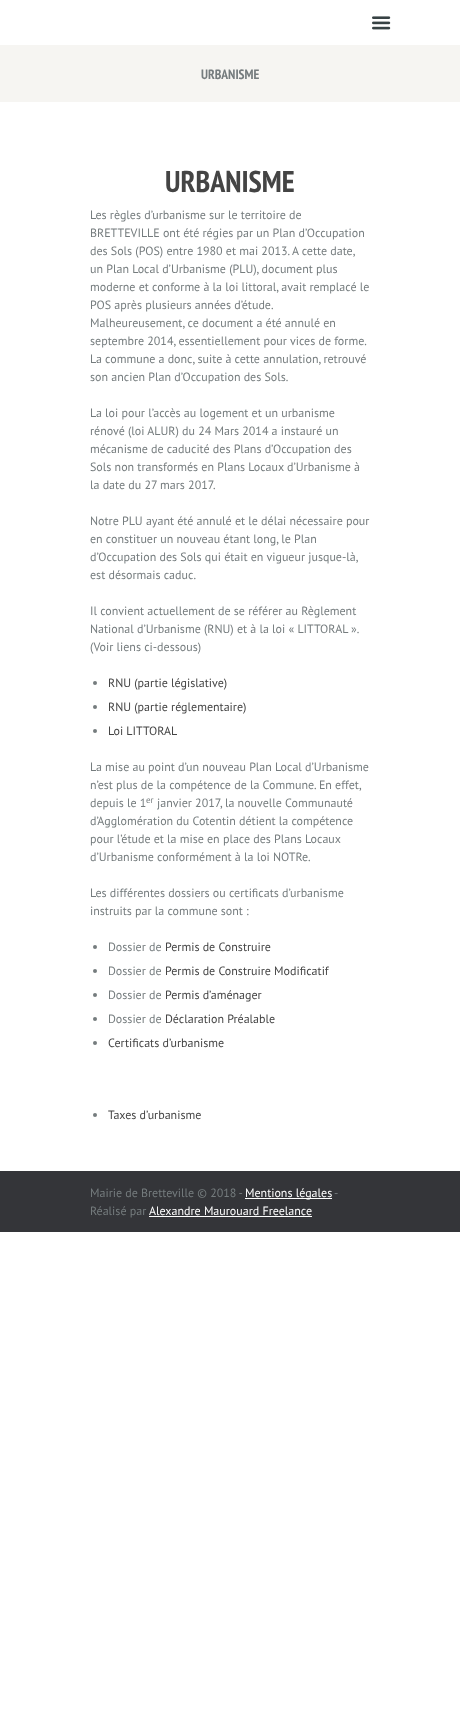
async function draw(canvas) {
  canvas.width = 460
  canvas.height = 1731
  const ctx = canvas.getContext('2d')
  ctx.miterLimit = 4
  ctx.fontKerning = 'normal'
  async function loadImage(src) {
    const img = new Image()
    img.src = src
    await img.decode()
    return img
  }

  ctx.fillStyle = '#fff'
  ctx.fillRect(0, 0, 460, 1731)
  ctx.drawImage(await loadImage('image0.png'), 372, 16, 19, 14)
  ctx.fillStyle = '#f6f5f2'
  ctx.fillRect(0, 45, 460, 57)
  ctx.font = 'bold 13.5px PT Sans Narrow'
  ctx.fillStyle = '#757c7e'
  ctx.fillText('URBANISME', 201, 79)
  ctx.font = 'bold 30px PT Sans Narrow'
  ctx.fillStyle = '#444'
  ctx.fillText('URBANISME', 165, 192)
  ctx.font = '12px PT Sans'
  ctx.fillStyle = '#757c7e'
  ctx.fillText('Les règles d’urbanisme sur le territoire de', 90, 219)
  ctx.fillText('BRETTEVILLE ont été régies par un Plan d’Occupation', 90, 237)
  ctx.fillText('des Sols (POS) entre 1980 et mai 2013. A cette date,', 90, 255)
  ctx.fillText('un Plan Local d’Urbanisme (PLU), document plus', 90, 273)
  ctx.fillText('moderne et conforme à la loi littoral, avait remplacé le', 90, 291)
  ctx.fillText('POS après plusieurs années d’étude.', 90, 309)
  ctx.fillText('Malheureusement, ce document a été annulé en', 90, 327)
  ctx.fillText('septembre 2014, essentiellement pour vices de forme.', 90, 345)
  ctx.fillText('La commune a donc, suite à cette annulation, retrouvé', 90, 363)
  ctx.fillText('son ancien Plan d’Occupation des Sols.', 90, 381)
  ctx.fillText('La loi pour l’accès au logement et un urbanisme', 90, 417)
  ctx.fillText('rénové (loi ALUR) du 24 Mars 2014 a instauré un', 90, 435)
  ctx.fillText('mécanisme de caducité des Plans d’Occupation des', 90, 453)
  ctx.fillText('Sols non transformés en Plans Locaux d’Urbanisme à', 90, 471)
  ctx.fillText('la date du 27 mars 2017.', 90, 489)
  ctx.fillText('Notre PLU ayant été annulé et le délai nécessaire pour', 90, 525)
  ctx.fillText('en constituer un nouveau étant long, le Plan', 90, 543)
  ctx.fillText('d’Occupation des Sols qui était en vigueur jusque-là,', 90, 561)
  ctx.fillText('est désormais caduc.', 90, 579)
  ctx.fillText('Il convient actuellement de se référer au Règlement', 90, 615)
  ctx.fillText('National d’Urbanisme (RNU) et à la loi « LITTORAL ».', 90, 633)
  ctx.fillText('(Voir liens ci-dessous)', 90, 651)
  ctx.beginPath()
  ctx.arc(95, 683, 2, 0, 2 * Math.PI)
  ctx.fill()
  ctx.fillStyle = '#444'
  ctx.fillText('RNU (partie législative)', 108, 687)
  ctx.fillStyle = '#757c7e'
  ctx.beginPath()
  ctx.arc(95, 707, 2, 0, 2 * Math.PI)
  ctx.fill()
  ctx.fillStyle = '#444'
  ctx.fillText('RNU (partie réglementaire)', 108, 711)
  ctx.fillStyle = '#757c7e'
  ctx.beginPath()
  ctx.arc(95, 731, 2, 0, 2 * Math.PI)
  ctx.fill()
  ctx.fillStyle = '#444'
  ctx.fillText('Loi LITTORAL', 108, 735)
  ctx.fillStyle = '#757c7e'
  ctx.fillText('La mise au point d’un nouveau Plan Local d’Urbanisme', 90, 771)
  ctx.fillText('n’est plus de la compétence de la Commune. En effet,', 90, 789)
  ctx.fillText('depuis le 1', 90, 807)
  ctx.font = '9px PT Sans'
  ctx.fillText('er', 146, 803)
  ctx.font = '12px PT Sans'
  ctx.fillText('janvier 2017, la nouvelle Communauté', 157, 807)
  ctx.fillText('d’Agglomération du Cotentin détient la compétence', 90, 825)
  ctx.fillText('pour l’étude et la mise en place des Plans Locaux', 90, 843)
  ctx.fillText('d’Urbanisme conformément à la loi NOTRe.', 90, 861)
  ctx.fillText('Les différentes dossiers ou certificats d’urbanisme', 90, 897)
  ctx.fillText('instruits par la commune sont :', 90, 915)
  ctx.beginPath()
  ctx.arc(95, 947, 2, 0, 2 * Math.PI)
  ctx.fill()
  ctx.fillText('Dossier de', 108, 951)
  ctx.fillStyle = '#444'
  ctx.fillText('Permis de Construire', 165, 951)
  ctx.fillStyle = '#757c7e'
  ctx.beginPath()
  ctx.arc(95, 971, 2, 0, 2 * Math.PI)
  ctx.fill()
  ctx.fillText('Dossier de', 108, 975)
  ctx.fillStyle = '#444'
  ctx.fillText('Permis de Construire Modificatif', 165, 975)
  ctx.fillStyle = '#757c7e'
  ctx.beginPath()
  ctx.arc(95, 995, 2, 0, 2 * Math.PI)
  ctx.fill()
  ctx.fillText('Dossier de', 108, 999)
  ctx.fillStyle = '#444'
  ctx.fillText('Permis d’aménager', 165, 999)
  ctx.fillStyle = '#757c7e'
  ctx.beginPath()
  ctx.arc(95, 1019, 2, 0, 2 * Math.PI)
  ctx.fill()
  ctx.fillText('Dossier de', 108, 1023)
  ctx.fillStyle = '#444'
  ctx.fillText('Déclaration Préalable', 165, 1023)
  ctx.fillStyle = '#757c7e'
  ctx.beginPath()
  ctx.arc(95, 1043, 2, 0, 2 * Math.PI)
  ctx.fill()
  ctx.fillStyle = '#444'
  ctx.fillText('Certificats d’urbanisme', 108, 1047)
  ctx.fillStyle = '#757c7e'
  ctx.beginPath()
  ctx.arc(95, 1115, 2, 0, 2 * Math.PI)
  ctx.fill()
  ctx.fillStyle = '#444'
  ctx.fillText('Taxes d’urbanisme', 108, 1119)
  ctx.fillStyle = '#343539'
  ctx.fillRect(0, 1171, 460, 61)
  ctx.fillStyle = '#757c7e'
  ctx.fillText('Mairie de Bretteville © 2018 -', 90, 1197)
  ctx.fillStyle = '#fff'
  ctx.fillRect(245, 1198, 87, 1)
  ctx.fillText('Mentions légales', 245, 1197)
  ctx.fillStyle = '#757c7e'
  ctx.fillText('-', 334, 1197)
  ctx.fillText('Réalisé par', 90, 1215)
  ctx.fillStyle = '#fff'
  ctx.fillText('Alexandre Maurouard Freelance', 149, 1215)
  ctx.fillRect(149, 1216, 163, 1)
}

draw(document.querySelector('canvas'))
